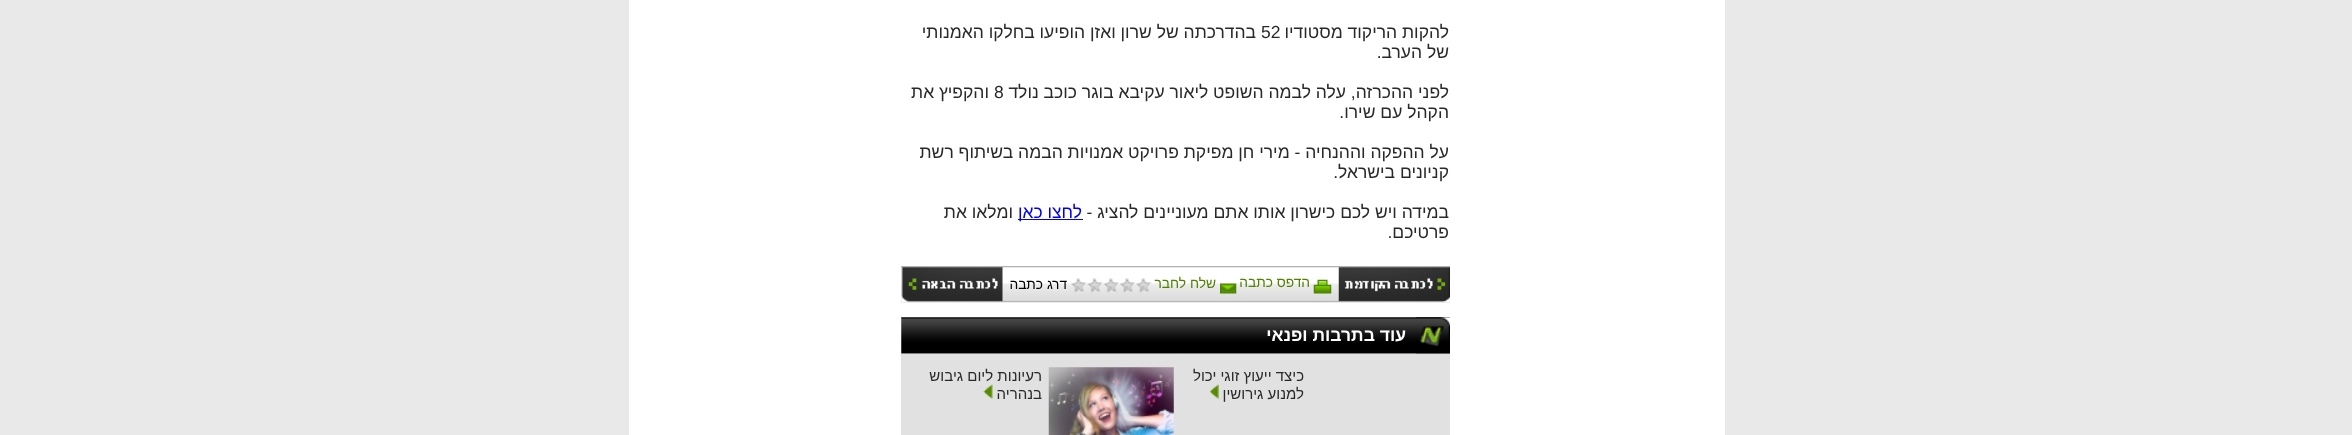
async function draw(canvas) {
  canvas.width = 2352
  canvas.height = 435
  const ctx = canvas.getContext('2d')
  ctx.miterLimit = 4
  ctx.fontKerning = 'normal'
  async function loadImage(src) {
    const img = new Image()
    img.src = src
    await img.decode()
    return img
  }

  ctx.fillStyle = '#e9e9e9'
  ctx.fillRect(0, 0, 2352, 435)
  ctx.fillStyle = '#fff'
  ctx.fillRect(629, 0, 1096, 435)
  ctx.direction = 'rtl'
  ctx.font = '17.5px Liberation Sans'
  ctx.fillStyle = '#292929'
  ctx.fillText('להקות הריקוד מסטודיו', 1449, 38)
  ctx.direction = 'ltr'
  ctx.fillText('52', 1261, 38)
  ctx.direction = 'rtl'
  ctx.fillText('בהדרכתה של שרון ואזן הופיעו בחלקו האמנותי', 1256, 38)
  ctx.fillText('של הערב.', 1449, 58)
  ctx.fillText('לפני ההכרזה, עלה לבמה השופט ליאור עקיבא בוגר כוכב נולד', 1449, 98)
  ctx.direction = 'ltr'
  ctx.fillText('8', 994, 98)
  ctx.direction = 'rtl'
  ctx.fillText('והקפיץ את', 989, 98)
  ctx.fillText('הקהל עם שירו.', 1449, 118)
  ctx.fillText('על ההפקה וההנחיה - מירי חן מפיקת פרויקט אמנויות הבמה בשיתוף רשת', 1449, 158)
  ctx.fillText('קניונים בישראל.', 1449, 178)
  ctx.fillText('במידה ויש לכם כישרון אותו אתם מעוניינים להציג -', 1449, 218)
  ctx.fillStyle = '#00e'
  ctx.fillRect(1018, 219, 65, 1)
  ctx.fillText('לחצו כאן', 1082, 218)
  ctx.fillStyle = '#292929'
  ctx.fillText('ומלאו את', 1013, 218)
  ctx.fillText('פרטיכם.', 1449, 238)
  ctx.drawImage(await loadImage('image0.png'), 901, 266, 549, 37)
  ctx.drawImage(await loadImage('image1.png'), 1338, 267, 112, 35)
  ctx.drawImage(await loadImage('image2.png'), 1313, 279, 19, 15)
  ctx.font = '13.75px Liberation Sans'
  ctx.fillStyle = '#4e8300'
  ctx.fillText('הדפס כתבה', 1310, 287)
  ctx.drawImage(await loadImage('image3.png'), 1220, 283, 17, 11)
  ctx.fillText('שלח לחבר', 1216, 288)
  ctx.drawImage(await loadImage('image4.png'), 1136, 278, 16, 15)
  ctx.drawImage(await loadImage('image5.png'), 1120, 278, 15, 15)
  ctx.drawImage(await loadImage('image6.png'), 1103, 278, 16, 15)
  ctx.drawImage(await loadImage('image7.png'), 1087, 278, 16, 15)
  ctx.drawImage(await loadImage('image8.png'), 1071, 278, 16, 15)
  ctx.fillStyle = '#000'
  ctx.fillText('דרג כתבה', 1067, 289)
  ctx.drawImage(await loadImage('image9.png'), 901, 266, 102, 36)
  ctx.drawImage(await loadImage('image10.png'), 901, 317, 549, 37)
  ctx.drawImage(await loadImage('image11.png'), 1416, 317, 34, 37)
  ctx.font = 'bold 17.5px Liberation Sans'
  ctx.fillStyle = '#fff'
  ctx.fillText('עוד בתרבות ופנאי', 1406, 341)
  ctx.fillStyle = '#e1e1e1'
  ctx.fillRect(901, 354, 549, 81)
  ctx.font = '15px Liberation Sans'
  ctx.fillStyle = '#292929'
  ctx.fillText('כיצד ייעוץ זוגי יכול', 1304, 381)
  ctx.fillText('למנוע גירושין', 1304, 399)
  ctx.drawImage(await loadImage('image12.png'), 1210, 384, 9, 15)
  ctx.drawImage(await loadImage('image13.png'), 1048, 367, 126, 68)
  ctx.fillText('רעיונות ליום גיבוש', 1042, 381)
  ctx.fillText('בנהריה', 1042, 399)
  ctx.drawImage(await loadImage('image14.png'), 983, 384, 10, 15)
}

draw(document.querySelector('canvas'))
